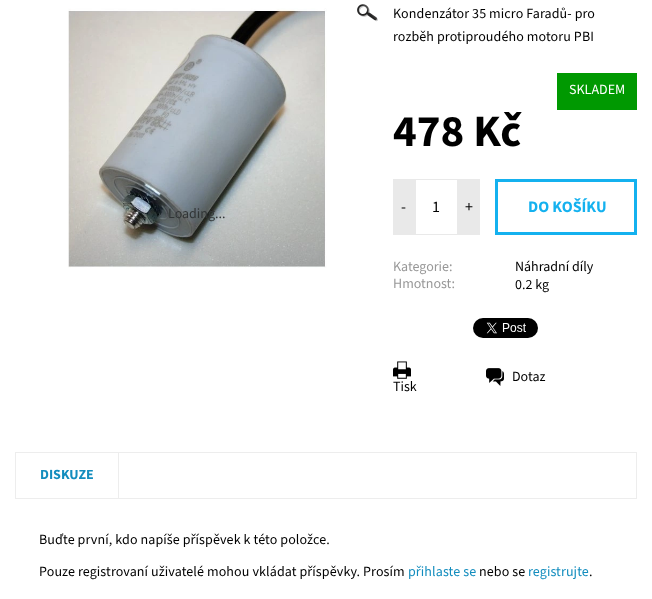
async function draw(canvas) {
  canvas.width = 652
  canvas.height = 599
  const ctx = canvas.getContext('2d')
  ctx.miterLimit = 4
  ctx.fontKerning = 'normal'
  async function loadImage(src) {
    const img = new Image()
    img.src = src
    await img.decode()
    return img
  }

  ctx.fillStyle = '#fff'
  ctx.fillRect(0, 0, 652, 599)
  ctx.drawImage(await loadImage('image0.png'), 357, 4, 21, 18)
  ctx.drawImage(await loadImage('image1.png'), 68, 8, 259, 260)
  ctx.font = '14px "Source Sans 3"'
  ctx.fillStyle = '#313536'
  ctx.fillText('Loading...', 168, 218)
  ctx.letterSpacing = '0.1px'
  ctx.fillStyle = '#000'
  ctx.fillText('Kondenzátor 35 micro Faradů- pro', 393, 18)
  ctx.fillText('rozběh protiproudého motoru PBI', 393, 41)
  ctx.fillStyle = '#009901'
  ctx.fillRect(557, 73, 80, 37)
  ctx.letterSpacing = '0px'
  ctx.fillStyle = '#fff'
  ctx.fillText('SKLADEM', 569, 94)
  ctx.font = 'bold 45px "Source Sans 3"'
  ctx.fillStyle = '#000'
  ctx.fillText('478 Kč', 393, 146)
  ctx.fillStyle = '#e9e9e9'
  ctx.fillRect(393, 179, 22, 56)
  ctx.font = '16px "Source Sans 3"'
  ctx.fillStyle = '#000'
  ctx.fillText('-', 401, 212)
  ctx.strokeStyle = '#e9e9e9'
  ctx.strokeRect(415.5, 179.5, 42, 55)
  ctx.fillText('1', 432, 212)
  ctx.fillStyle = '#e9e9e9'
  ctx.fillRect(458, 179, 22, 56)
  ctx.fillStyle = '#000'
  ctx.fillText('+', 465, 212)
  ctx.strokeStyle = '#14b1ef'
  ctx.lineWidth = 2
  ctx.strokeRect(497, 181, 138, 52)
  ctx.lineWidth = 1
  ctx.strokeRect(495.5, 179.5, 141, 55)
  ctx.font = 'bold 16px "Source Sans 3"'
  ctx.fillStyle = '#14b1ef'
  ctx.fillText('DO KOŠÍKU', 528, 212)
  ctx.font = '14px "Source Sans 3"'
  ctx.fillStyle = '#989898'
  ctx.fillText('Kategorie:', 393, 271)
  ctx.fillStyle = '#000'
  ctx.fillText('Náhradní díly', 515, 271)
  ctx.fillStyle = '#989898'
  ctx.fillText('Hmotnost:', 393, 288)
  ctx.fillStyle = '#000'
  ctx.fillText('0.2 kg', 515, 289)
  ctx.drawImage(await loadImage('image2.png'), 473, 318, 65, 20)
  ctx.drawImage(await loadImage('image3.png'), 486, 368, 18, 18)
  ctx.fillText('Dotaz', 512, 381)
  ctx.drawImage(await loadImage('image4.png'), 393, 361, 18, 18)
  ctx.fillText('Tisk', 393, 391)
  ctx.strokeStyle = '#ededed'
  ctx.strokeRect(15.5, 452.5, 621, 46)
  ctx.fillStyle = '#ededed'
  ctx.fillRect(118, 453, 1, 45)
  ctx.font = 'bold 14px "Source Sans 3"'
  ctx.fillStyle = '#138dbe'
  ctx.fillText('DISKUZE', 40, 479)
  ctx.letterSpacing = '0.1px'
  ctx.font = '14px "Source Sans 3"'
  ctx.fillStyle = '#000'
  ctx.fillText('Buďte první, kdo napíše příspěvek k této položce.', 39, 544)
  ctx.fillText('Pouze registrovaní uživatelé mohou vkládat příspěvky. Prosím', 39, 576)
  ctx.fillStyle = '#138dbe'
  ctx.fillText('přihlaste se', 408, 576)
  ctx.fillStyle = '#000'
  ctx.fillText('nebo se', 479, 576)
  ctx.fillStyle = '#138dbe'
  ctx.fillText('registrujte', 528, 576)
  ctx.fillStyle = '#000'
  ctx.fillText('.', 589, 576)
}

draw(document.querySelector('canvas'))
